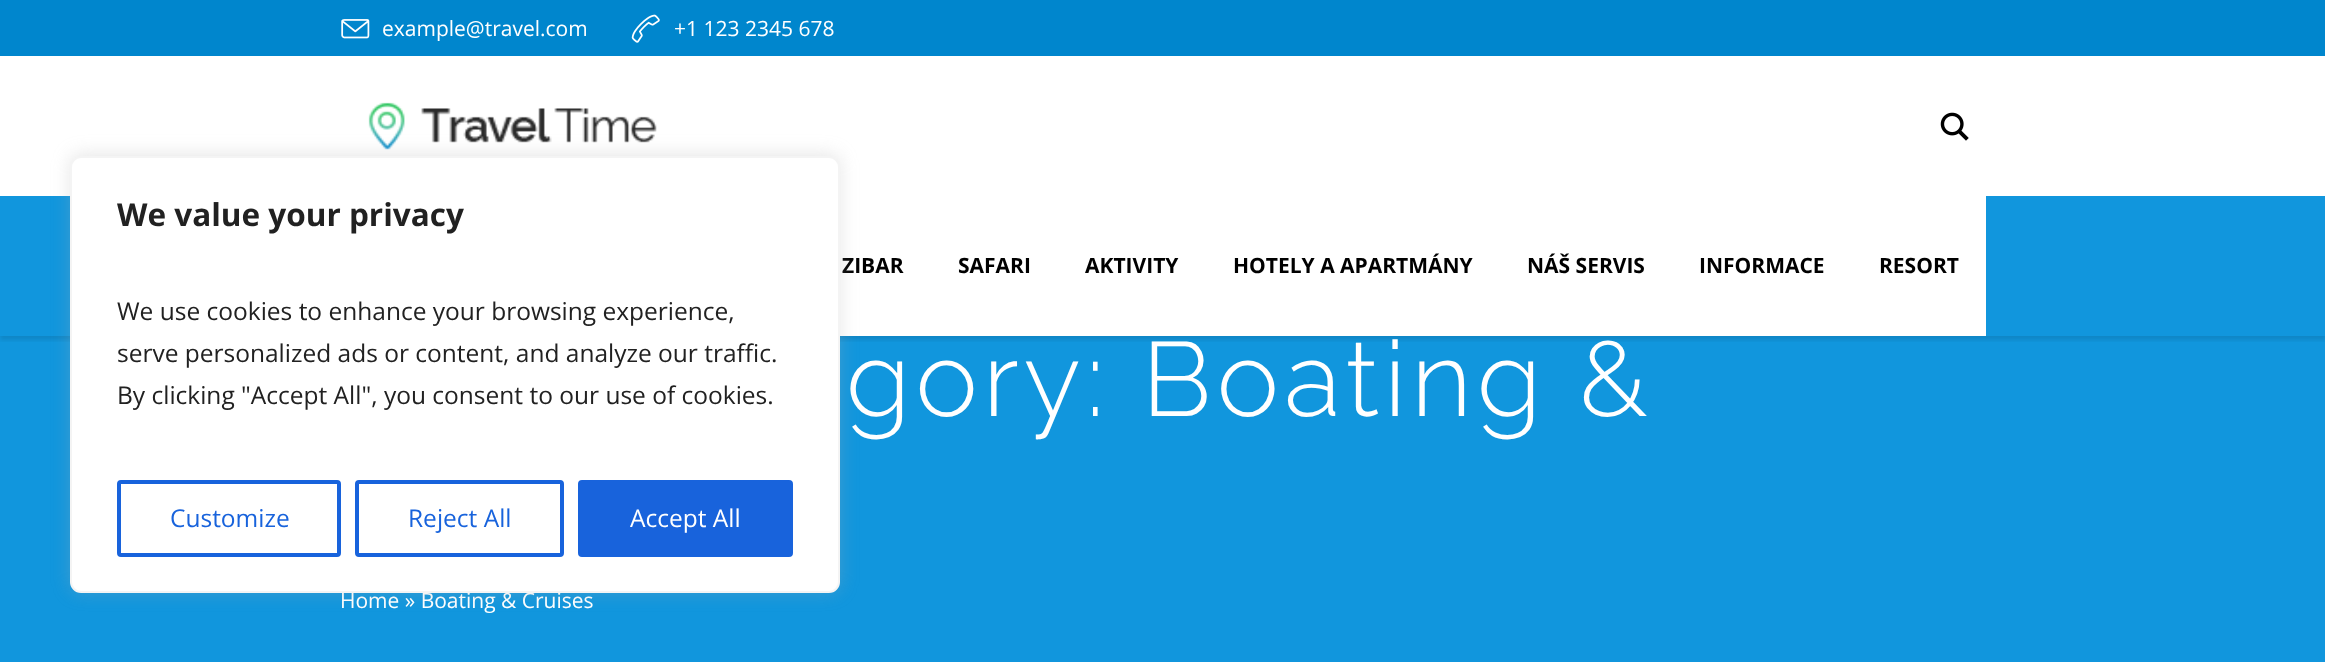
async function draw(canvas) {
  canvas.width = 2325
  canvas.height = 662
  const ctx = canvas.getContext('2d')
  ctx.miterLimit = 4
  ctx.fontKerning = 'normal'
  async function loadImage(src) {
    const img = new Image()
    img.src = src
    await img.decode()
    return img
  }

  ctx.fillStyle = '#1196dd'
  ctx.fillRect(0, 0, 2325, 662)
  ctx.save()
  ctx.beginPath()
  ctx.rect(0, 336, 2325, 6)
  ctx.clip()
  ctx.fillStyle = '#0000001a'
  ctx.filter = 'blur(2px)'
  ctx.beginPath()
  ctx.rect(0, 4, 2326, 336)
  ctx.fill()
  ctx.filter = 'none'
  ctx.restore()
  ctx.fillStyle = '#0086cd'
  ctx.fillRect(0, 0, 2325, 56)
  ctx.drawImage(await loadImage('image0.png'), 341, 19, 29, 20)
  ctx.font = '21px Open Sans'
  ctx.fillStyle = '#fff'
  ctx.fillText('example@travel.com', 382, 36)
  ctx.drawImage(await loadImage('image1.png'), 631, 14, 29, 29)
  ctx.fillText('+1 123 2345 678', 674, 36)
  ctx.fillRect(0, 56, 2325, 140)
  ctx.drawImage(await loadImage('image2.png'), 368, 102, 289, 48)
  ctx.drawImage(await loadImage('image3.png'), 1940, 112, 29, 29)
  ctx.fillRect(840, 196, 1146, 140)
  ctx.font = 'bold 21px Open Sans'
  ctx.fillStyle = '#000'
  ctx.fillText('ZIBAR', 842, 273)
  ctx.fillText('SAFARI', 958, 273)
  ctx.fillText('AKTIVITY', 1085, 273)
  ctx.fillText('HOTELY A APARTMÁNY', 1233, 273)
  ctx.fillText('NÁŠ SERVIS', 1527, 273)
  ctx.fillText('INFORMACE', 1699, 273)
  ctx.fillText('RESORT', 1879, 273)
  ctx.letterSpacing = '5.25px'
  ctx.font = '300 105px Raleway'
  ctx.fillStyle = '#fff'
  ctx.fillText('gory: Boating &', 846, 416)
  ctx.letterSpacing = '0px'
  ctx.font = '21px Open Sans'
  ctx.fillText('Home » Boating & Cruises', 340, 608)
  ctx.fillStyle = '#acabab4d'
  ctx.filter = 'blur(9px)'
  ctx.beginPath()
  ctx.roundRect(70, 154, 770, 438, 11)
  ctx.fill()
  ctx.filter = 'none'
  ctx.fillStyle = '#fff'
  ctx.beginPath()
  ctx.roundRect(71, 157, 768, 435, 10)
  ctx.fill()
  ctx.strokeStyle = '#f4f4f4'
  ctx.lineWidth = 2
  ctx.stroke()
  ctx.font = 'bold 31.5px Open Sans'
  ctx.fillStyle = '#212121'
  ctx.fillText('We value your privacy', 117, 226)
  ctx.font = '24.5px Open Sans'
  ctx.fillText('We use cookies to enhance your browsing experience,', 117, 320)
  ctx.fillText('serve personalized ads or content, and analyze our traffic.', 117, 362)
  ctx.fillText('By clicking "Accept All", you consent to our use of cookies.', 117, 404)
  ctx.beginPath()
  ctx.roundRect(119, 482, 220, 73, 2)
  ctx.strokeStyle = '#1863dc'
  ctx.lineWidth = 4
  ctx.stroke()
  ctx.fillStyle = '#1863dc'
  ctx.fillText('Customize', 170, 527)
  ctx.beginPath()
  ctx.roundRect(357, 482, 205, 73, 2)
  ctx.stroke()
  ctx.fillText('Reject All', 408, 527)
  ctx.beginPath()
  ctx.roundRect(580, 482, 211, 73, 2)
  ctx.fill()
  ctx.stroke()
  ctx.fillStyle = '#fff'
  ctx.fillText('Accept All', 630, 527)
}

draw(document.querySelector('canvas'))
